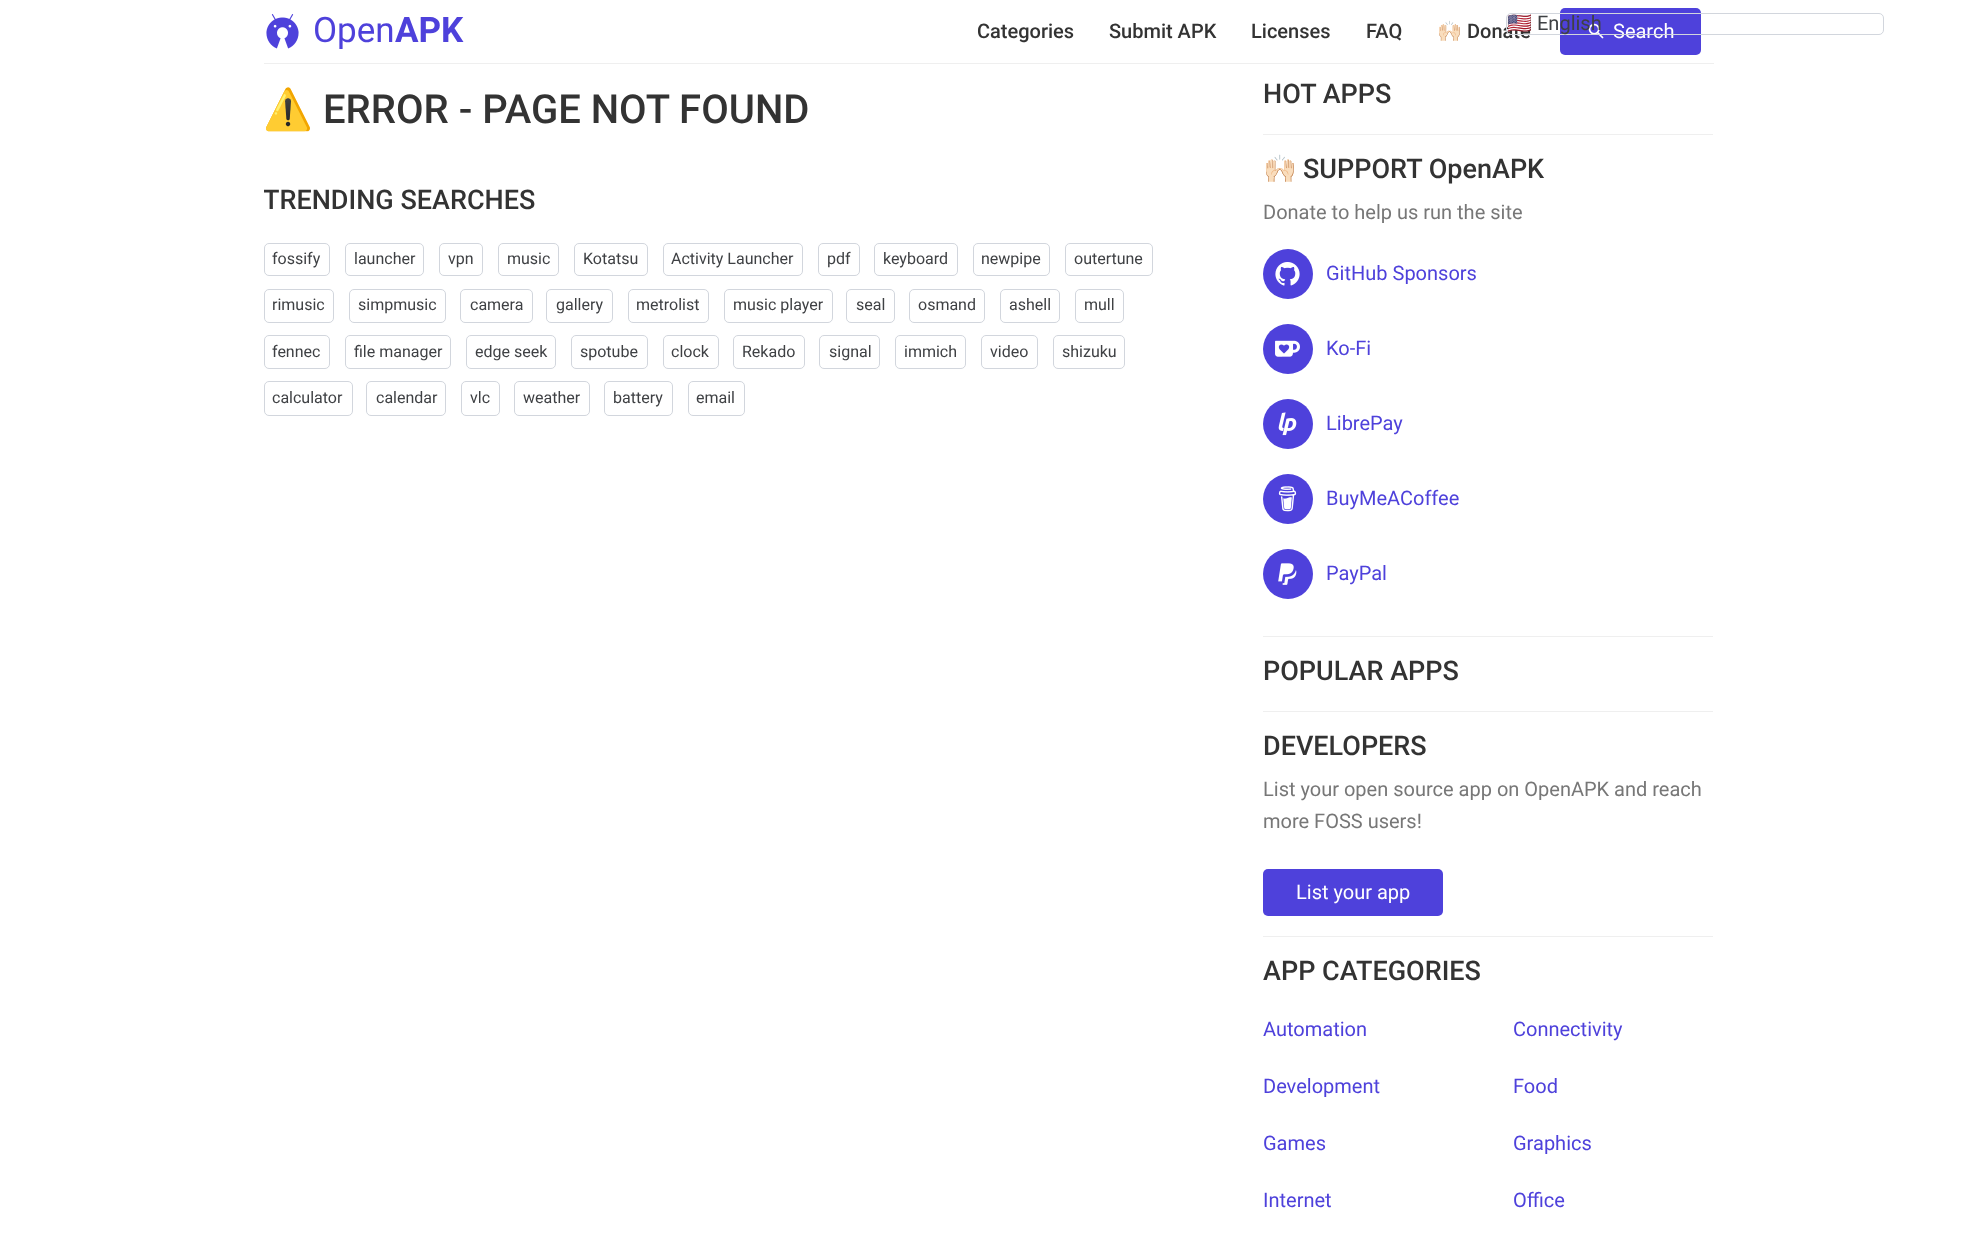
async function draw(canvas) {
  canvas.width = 1976
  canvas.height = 1242
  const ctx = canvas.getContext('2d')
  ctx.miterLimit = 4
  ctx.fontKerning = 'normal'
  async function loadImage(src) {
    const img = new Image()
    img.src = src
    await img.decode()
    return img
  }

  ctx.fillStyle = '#fff'
  ctx.fillRect(0, 0, 1976, 1242)
  ctx.fillStyle = '#efefef'
  ctx.fillRect(264, 63, 1450, 1)
  ctx.drawImage(await loadImage('image0.png'), 266, 14, 33, 35)
  ctx.font = '35px Roboto'
  ctx.fillStyle = '#4e41db'
  ctx.fillText('Open', 313, 42)
  ctx.font = 'bold 35px Roboto'
  ctx.fillText('APK', 395, 42)
  ctx.font = '500 20px Roboto'
  ctx.fillStyle = '#333'
  ctx.fillText('Categories', 977, 38)
  ctx.fillText('Submit APK', 1109, 38)
  ctx.fillText('Licenses', 1251, 38)
  ctx.fillText('FAQ', 1366, 38)
  ctx.font = '20px Noto Color Emoji'
  ctx.fillText('🙌🏻', 1437, 38)
  ctx.font = '500 20px Roboto'
  ctx.fillText('Donate', 1467, 38)
  ctx.fillStyle = '#4e41db'
  ctx.beginPath()
  ctx.roundRect(1560, 8, 141, 47, 5)
  ctx.fill()
  ctx.drawImage(await loadImage('image1.png'), 1588, 23, 16, 16)
  ctx.font = '20px Roboto'
  ctx.fillStyle = '#fff'
  ctx.fillText('Search', 1613, 38)
  ctx.beginPath()
  ctx.roundRect(1506.5, 13.5, 377, 21, 4.5)
  ctx.strokeStyle = '#d2d6dd'
  ctx.stroke()
  ctx.font = '20px Noto Color Emoji'
  ctx.fillStyle = '#3f4144'
  ctx.fillText('🇺🇸', 1507, 30)
  ctx.font = '20px Roboto'
  ctx.fillText('English', 1537, 30)
  ctx.font = '40px Noto Color Emoji'
  ctx.fillStyle = '#333'
  ctx.fillText('⚠️', 263, 123)
  ctx.font = '500 40px Roboto'
  ctx.fillText('ERROR - PAGE NOT FOUND', 323, 123)
  ctx.save()
  ctx.beginPath()
  ctx.rect(264, 170, 949, 258)
  ctx.clip()
  ctx.font = '500 27px Roboto'
  ctx.fillText('TRENDING SEARCHES', 263, 209)
  ctx.restore()
  ctx.beginPath()
  ctx.roundRect(264.5, 243.5, 65, 32, 4.5)
  ctx.stroke()
  ctx.font = '16px Roboto'
  ctx.fillStyle = '#3f4144'
  ctx.fillText('fossify', 272, 264)
  ctx.beginPath()
  ctx.roundRect(345.5, 243.5, 78, 32, 4.5)
  ctx.stroke()
  ctx.fillText('launcher', 354, 264)
  ctx.beginPath()
  ctx.roundRect(439.5, 243.5, 43, 32, 4.5)
  ctx.stroke()
  ctx.fillText('vpn', 448, 264)
  ctx.beginPath()
  ctx.roundRect(498.5, 243.5, 60, 32, 4.5)
  ctx.stroke()
  ctx.fillText('music', 507, 264)
  ctx.beginPath()
  ctx.roundRect(574.5, 243.5, 73, 32, 4.5)
  ctx.stroke()
  ctx.fillText('Kotatsu', 583, 264)
  ctx.beginPath()
  ctx.roundRect(663.5, 243.5, 139, 32, 4.5)
  ctx.stroke()
  ctx.fillText('Activity Launcher', 671, 264)
  ctx.beginPath()
  ctx.roundRect(818.5, 243.5, 41, 32, 4.5)
  ctx.stroke()
  ctx.fillText('pdf', 827, 264)
  ctx.beginPath()
  ctx.roundRect(874.5, 243.5, 83, 32, 4.5)
  ctx.stroke()
  ctx.fillText('keyboard', 883, 264)
  ctx.beginPath()
  ctx.roundRect(973.5, 243.5, 76, 32, 4.5)
  ctx.stroke()
  ctx.fillText('newpipe', 981, 264)
  ctx.beginPath()
  ctx.roundRect(1065.5, 243.5, 87, 32, 4.5)
  ctx.stroke()
  ctx.fillText('outertune', 1074, 264)
  ctx.beginPath()
  ctx.roundRect(264.5, 289.5, 69, 33, 4.5)
  ctx.stroke()
  ctx.fillText('rimusic', 272, 310)
  ctx.beginPath()
  ctx.roundRect(349.5, 289.5, 96, 33, 4.5)
  ctx.stroke()
  ctx.fillText('simpmusic', 358, 310)
  ctx.beginPath()
  ctx.roundRect(460.5, 289.5, 72, 33, 4.5)
  ctx.stroke()
  ctx.fillText('camera', 470, 310)
  ctx.beginPath()
  ctx.roundRect(546.5, 289.5, 66, 33, 4.5)
  ctx.stroke()
  ctx.fillText('gallery', 556, 310)
  ctx.beginPath()
  ctx.roundRect(628.5, 289.5, 80, 33, 4.5)
  ctx.stroke()
  ctx.fillText('metrolist', 636, 310)
  ctx.beginPath()
  ctx.roundRect(724.5, 289.5, 108, 33, 4.5)
  ctx.stroke()
  ctx.fillText('music player', 733, 310)
  ctx.beginPath()
  ctx.roundRect(846.5, 289.5, 48, 33, 4.5)
  ctx.stroke()
  ctx.fillText('seal', 856, 310)
  ctx.beginPath()
  ctx.roundRect(909.5, 289.5, 75, 33, 4.5)
  ctx.stroke()
  ctx.fillText('osmand', 918, 310)
  ctx.beginPath()
  ctx.roundRect(1000.5, 289.5, 59, 33, 4.5)
  ctx.stroke()
  ctx.fillText('ashell', 1009, 310)
  ctx.beginPath()
  ctx.roundRect(1075.5, 289.5, 48, 33, 4.5)
  ctx.stroke()
  ctx.fillText('mull', 1084, 310)
  ctx.beginPath()
  ctx.roundRect(264.5, 335.5, 65, 33, 4.5)
  ctx.stroke()
  ctx.fillText('fennec', 272, 357)
  ctx.beginPath()
  ctx.roundRect(345.5, 335.5, 105, 33, 4.5)
  ctx.stroke()
  ctx.fillText('file manager', 354, 357)
  ctx.beginPath()
  ctx.roundRect(466.5, 335.5, 89, 33, 4.5)
  ctx.stroke()
  ctx.fillText('edge seek', 475, 357)
  ctx.beginPath()
  ctx.roundRect(571.5, 335.5, 76, 33, 4.5)
  ctx.stroke()
  ctx.fillText('spotube', 580, 357)
  ctx.beginPath()
  ctx.roundRect(663.5, 335.5, 55, 33, 4.5)
  ctx.stroke()
  ctx.fillText('clock', 671, 357)
  ctx.beginPath()
  ctx.roundRect(733.5, 335.5, 71, 33, 4.5)
  ctx.stroke()
  ctx.fillText('Rekado', 742, 357)
  ctx.beginPath()
  ctx.roundRect(819.5, 335.5, 60, 33, 4.5)
  ctx.stroke()
  ctx.fillText('signal', 829, 357)
  ctx.beginPath()
  ctx.roundRect(895.5, 335.5, 70, 33, 4.5)
  ctx.stroke()
  ctx.fillText('immich', 904, 357)
  ctx.beginPath()
  ctx.roundRect(981.5, 335.5, 56, 33, 4.5)
  ctx.stroke()
  ctx.fillText('video', 990, 357)
  ctx.beginPath()
  ctx.roundRect(1053.5, 335.5, 71, 33, 4.5)
  ctx.stroke()
  ctx.fillText('shizuku', 1062, 357)
  ctx.beginPath()
  ctx.roundRect(264.5, 381.5, 88, 34, 4.5)
  ctx.stroke()
  ctx.fillText('calculator', 272, 403)
  ctx.beginPath()
  ctx.roundRect(366.5, 381.5, 79, 34, 4.5)
  ctx.stroke()
  ctx.fillText('calendar', 376, 403)
  ctx.beginPath()
  ctx.roundRect(461.5, 381.5, 38, 34, 4.5)
  ctx.stroke()
  ctx.fillText('vlc', 470, 403)
  ctx.beginPath()
  ctx.roundRect(514.5, 381.5, 75, 34, 4.5)
  ctx.stroke()
  ctx.fillText('weather', 523, 403)
  ctx.beginPath()
  ctx.roundRect(604.5, 381.5, 68, 34, 4.5)
  ctx.stroke()
  ctx.fillText('battery', 613, 403)
  ctx.beginPath()
  ctx.roundRect(688.5, 381.5, 56, 34, 4.5)
  ctx.stroke()
  ctx.fillText('email', 696, 403)
  ctx.font = '500 27px Roboto'
  ctx.fillStyle = '#333'
  ctx.fillText('HOT APPS', 1263, 103)
  ctx.fillStyle = '#efefef'
  ctx.fillRect(1263, 134, 450, 1)
  ctx.font = '27px Noto Color Emoji'
  ctx.fillStyle = '#333'
  ctx.fillText('🙌🏻', 1263, 178)
  ctx.font = '500 27px Roboto'
  ctx.fillText('SUPPORT OpenAPK', 1303, 178)
  ctx.font = '20px Roboto'
  ctx.fillStyle = '#777'
  ctx.fillText('Donate to help us run the site', 1263, 219)
  ctx.fillStyle = '#4e41db'
  ctx.beginPath()
  ctx.arc(1288, 274, 25, 0, 2 * Math.PI)
  ctx.fill()
  ctx.drawImage(await loadImage('image2.png'), 1275, 262, 25, 24)
  ctx.fillText('GitHub Sponsors', 1326, 280)
  ctx.beginPath()
  ctx.arc(1288, 349, 25, 0, 2 * Math.PI)
  ctx.fill()
  ctx.drawImage(await loadImage('image3.png'), 1275, 340, 25, 17)
  ctx.fillText('Ko-Fi', 1326, 355)
  ctx.beginPath()
  ctx.arc(1288, 424, 25, 0, 2 * Math.PI)
  ctx.fill()
  ctx.drawImage(await loadImage('image4.png'), 1278, 412, 19, 24)
  ctx.fillText('LibrePay', 1326, 430)
  ctx.beginPath()
  ctx.arc(1288, 499, 25, 0, 2 * Math.PI)
  ctx.fill()
  ctx.drawImage(await loadImage('image5.png'), 1278, 486, 19, 26)
  ctx.fillText('BuyMeACoffee', 1326, 505)
  ctx.beginPath()
  ctx.arc(1288, 574, 25, 0, 2 * Math.PI)
  ctx.fill()
  ctx.drawImage(await loadImage('image6.png'), 1278, 563, 19, 22)
  ctx.fillText('PayPal', 1326, 580)
  ctx.fillStyle = '#efefef'
  ctx.fillRect(1263, 636, 450, 1)
  ctx.font = '500 27px Roboto'
  ctx.fillStyle = '#333'
  ctx.fillText('POPULAR APPS', 1263, 680)
  ctx.fillStyle = '#efefef'
  ctx.fillRect(1263, 711, 450, 1)
  ctx.fillStyle = '#333'
  ctx.fillText('DEVELOPERS', 1263, 755)
  ctx.font = '20px Roboto'
  ctx.fillStyle = '#777'
  ctx.fillText('List your open source app on OpenAPK and reach', 1263, 796)
  ctx.fillText('more FOSS users!', 1263, 828)
  ctx.fillStyle = '#4e41db'
  ctx.beginPath()
  ctx.roundRect(1263, 869, 180, 47, 5)
  ctx.fill()
  ctx.fillStyle = '#fff'
  ctx.fillText('List your app', 1296, 899)
  ctx.fillStyle = '#efefef'
  ctx.fillRect(1263, 936, 450, 1)
  ctx.font = '500 27px Roboto'
  ctx.fillStyle = '#333'
  ctx.fillText('APP CATEGORIES', 1263, 980)
  ctx.font = '20px Roboto'
  ctx.fillStyle = '#4e41db'
  ctx.fillText('Automation', 1263, 1036)
  ctx.fillText('Connectivity', 1513, 1036)
  ctx.fillText('Development', 1263, 1093)
  ctx.fillText('Food', 1513, 1093)
  ctx.fillText('Games', 1263, 1150)
  ctx.fillText('Graphics', 1513, 1150)
  ctx.fillText('Internet', 1263, 1207)
  ctx.fillText('Office', 1513, 1207)
}

draw(document.querySelector('canvas'))
